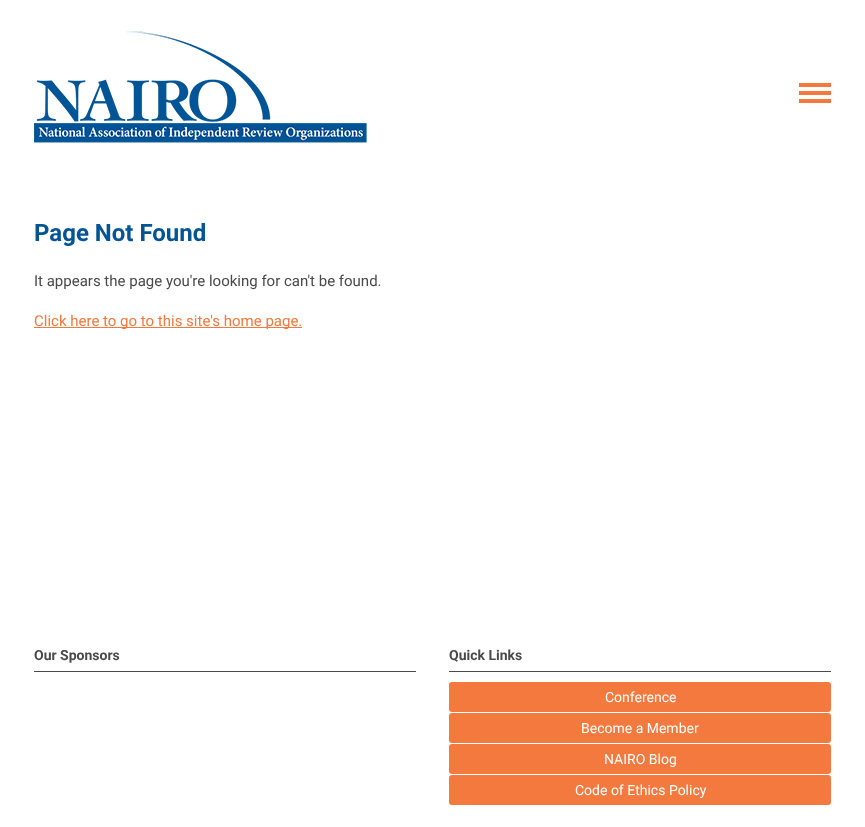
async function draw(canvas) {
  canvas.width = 865
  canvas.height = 827
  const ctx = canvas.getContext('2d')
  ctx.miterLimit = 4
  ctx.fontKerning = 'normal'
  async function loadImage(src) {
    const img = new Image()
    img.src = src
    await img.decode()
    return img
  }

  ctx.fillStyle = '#fff'
  ctx.fillRect(0, 0, 865, 827)
  ctx.drawImage(await loadImage('image0.png'), 34, 31, 333, 112)
  ctx.drawImage(await loadImage('image1.png'), 799, 83, 32, 20)
  ctx.font = 'bold 24px Roboto'
  ctx.fillStyle = '#015495'
  ctx.fillText('Page Not Found', 34, 241)
  ctx.font = '15px Roboto'
  ctx.fillStyle = '#4a4a4a'
  ctx.fillText('It appears the page you\'re looking for can\'t be found.', 34, 286)
  ctx.fillStyle = '#f4793e'
  ctx.fillRect(34, 327, 268, 1)
  ctx.fillText('Click here to go to this site\'s home page.', 34, 326)
  ctx.fillStyle = '#4a4a4a'
  ctx.fillRect(34, 671, 382, 1)
  ctx.font = 'bold 14px Roboto'
  ctx.fillText('Our Sponsors', 34, 660)
  ctx.fillRect(449, 671, 382, 1)
  ctx.fillText('Quick Links', 449, 660)
  ctx.fillStyle = '#f4793e'
  ctx.beginPath()
  ctx.roundRect(449, 682, 382, 30, 3)
  ctx.fill()
  ctx.font = '14px Roboto'
  ctx.fillStyle = '#fff'
  ctx.fillText('Conference', 605, 702)
  ctx.fillStyle = '#f4793e'
  ctx.beginPath()
  ctx.roundRect(449, 713, 382, 30, 3)
  ctx.fill()
  ctx.fillStyle = '#fff'
  ctx.fillText('Become a Member', 581, 733)
  ctx.fillStyle = '#f4793e'
  ctx.beginPath()
  ctx.roundRect(449, 744, 382, 30, 3)
  ctx.fill()
  ctx.fillStyle = '#fff'
  ctx.fillText('NAIRO Blog', 604, 764)
  ctx.fillStyle = '#f4793e'
  ctx.beginPath()
  ctx.roundRect(449, 775, 382, 30, 3)
  ctx.fill()
  ctx.fillStyle = '#fff'
  ctx.fillText('Code of Ethics Policy', 575, 795)
}

draw(document.querySelector('canvas'))
